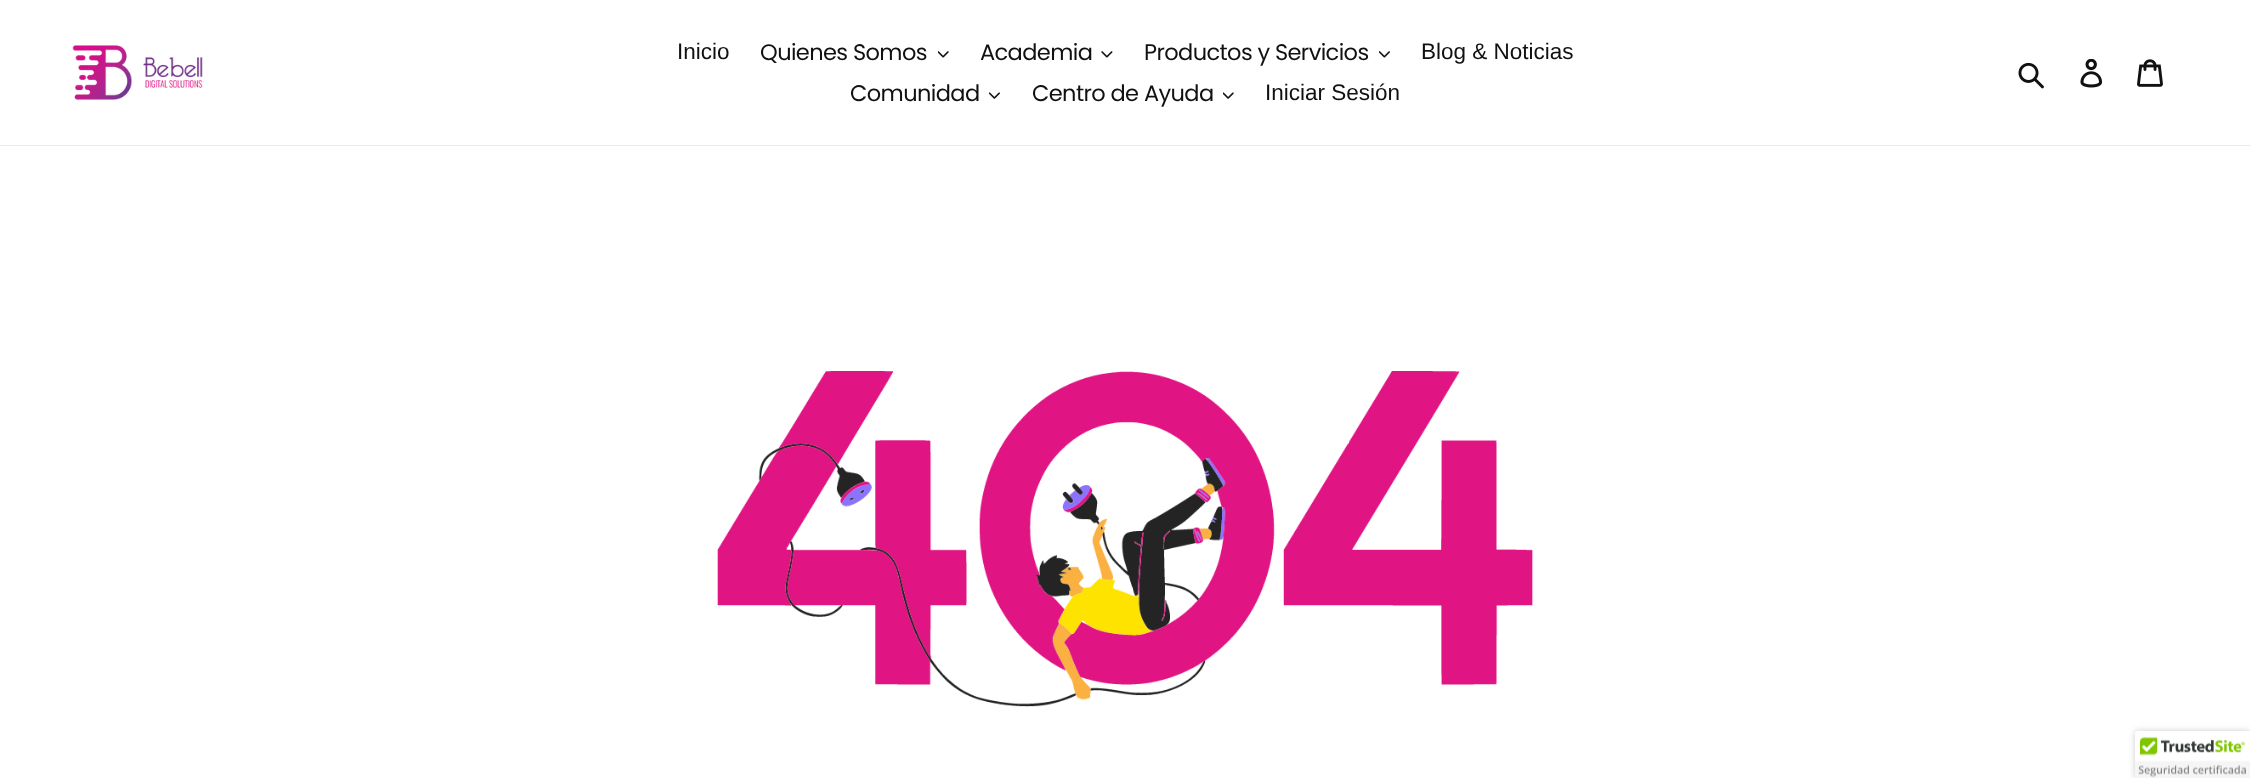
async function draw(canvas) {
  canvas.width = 2250
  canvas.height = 778
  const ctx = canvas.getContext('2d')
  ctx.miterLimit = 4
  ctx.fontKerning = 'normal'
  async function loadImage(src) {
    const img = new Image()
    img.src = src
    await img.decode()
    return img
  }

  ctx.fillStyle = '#fff'
  ctx.fillRect(0, 0, 2250, 778)
  ctx.fillStyle = '#e8e9eb'
  ctx.fillRect(0, 145, 2250, 1)
  ctx.drawImage(await loadImage('image0.png'), 72, 45, 131, 55)
  ctx.font = '22.5px Liberation Sans'
  ctx.fillStyle = '#111'
  ctx.fillText('Inicio', 677, 59)
  ctx.letterSpacing = '-0.6px'
  ctx.font = '22.5px Poppins'
  ctx.fillText('Quienes Somos', 760, 60)
  ctx.drawImage(await loadImage('image1.png'), 938, 51, 11, 7)
  ctx.fillText('Academia', 980, 60)
  ctx.drawImage(await loadImage('image2.png'), 1101, 51, 12, 7)
  ctx.fillText('Productos y Servicios', 1144, 60)
  ctx.drawImage(await loadImage('image3.png'), 1379, 51, 11, 7)
  ctx.letterSpacing = '0px'
  ctx.font = '22.5px Liberation Sans'
  ctx.fillText('Blog & Noticias', 1421, 59)
  ctx.letterSpacing = '-0.6px'
  ctx.font = '22.5px Poppins'
  ctx.fillText('Comunidad', 850, 101)
  ctx.drawImage(await loadImage('image4.png'), 989, 92, 11, 7)
  ctx.fillText('Centro de Ayuda', 1032, 101)
  ctx.drawImage(await loadImage('image5.png'), 1223, 92, 11, 7)
  ctx.letterSpacing = '0px'
  ctx.font = '22.5px Liberation Sans'
  ctx.fillText('Iniciar Sesión', 1265, 100)
  ctx.drawImage(await loadImage('image6.png'), 2018, 62, 26, 27)
  ctx.drawImage(await loadImage('image7.png'), 2080, 59, 22, 29)
  ctx.drawImage(await loadImage('image8.png'), 2137, 59, 26, 28)
  ctx.drawImage(await loadImage('image9.png'), 717, 371, 816, 336)
  ctx.fillStyle = '#00000033'
  ctx.filter = 'blur(3px)'
  ctx.beginPath()
  ctx.roundRect(2135, 731, 115, 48, 2.5)
  ctx.fill()
  ctx.filter = 'none'
  ctx.fillStyle = '#fff'
  ctx.beginPath()
  ctx.moveTo(2137.5, 731)
  ctx.lineTo(2250, 731)
  ctx.lineTo(2250, 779)
  ctx.lineTo(2135, 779)
  ctx.lineTo(2135, 733.5)
  ctx.bezierCurveTo(2135, 732, 2136, 731, 2137.5, 731)
  ctx.closePath()
  ctx.fill()
  ctx.drawImage(await loadImage('image10.png'), 2135, 736, 115, 42)
}

draw(document.querySelector('canvas'))
